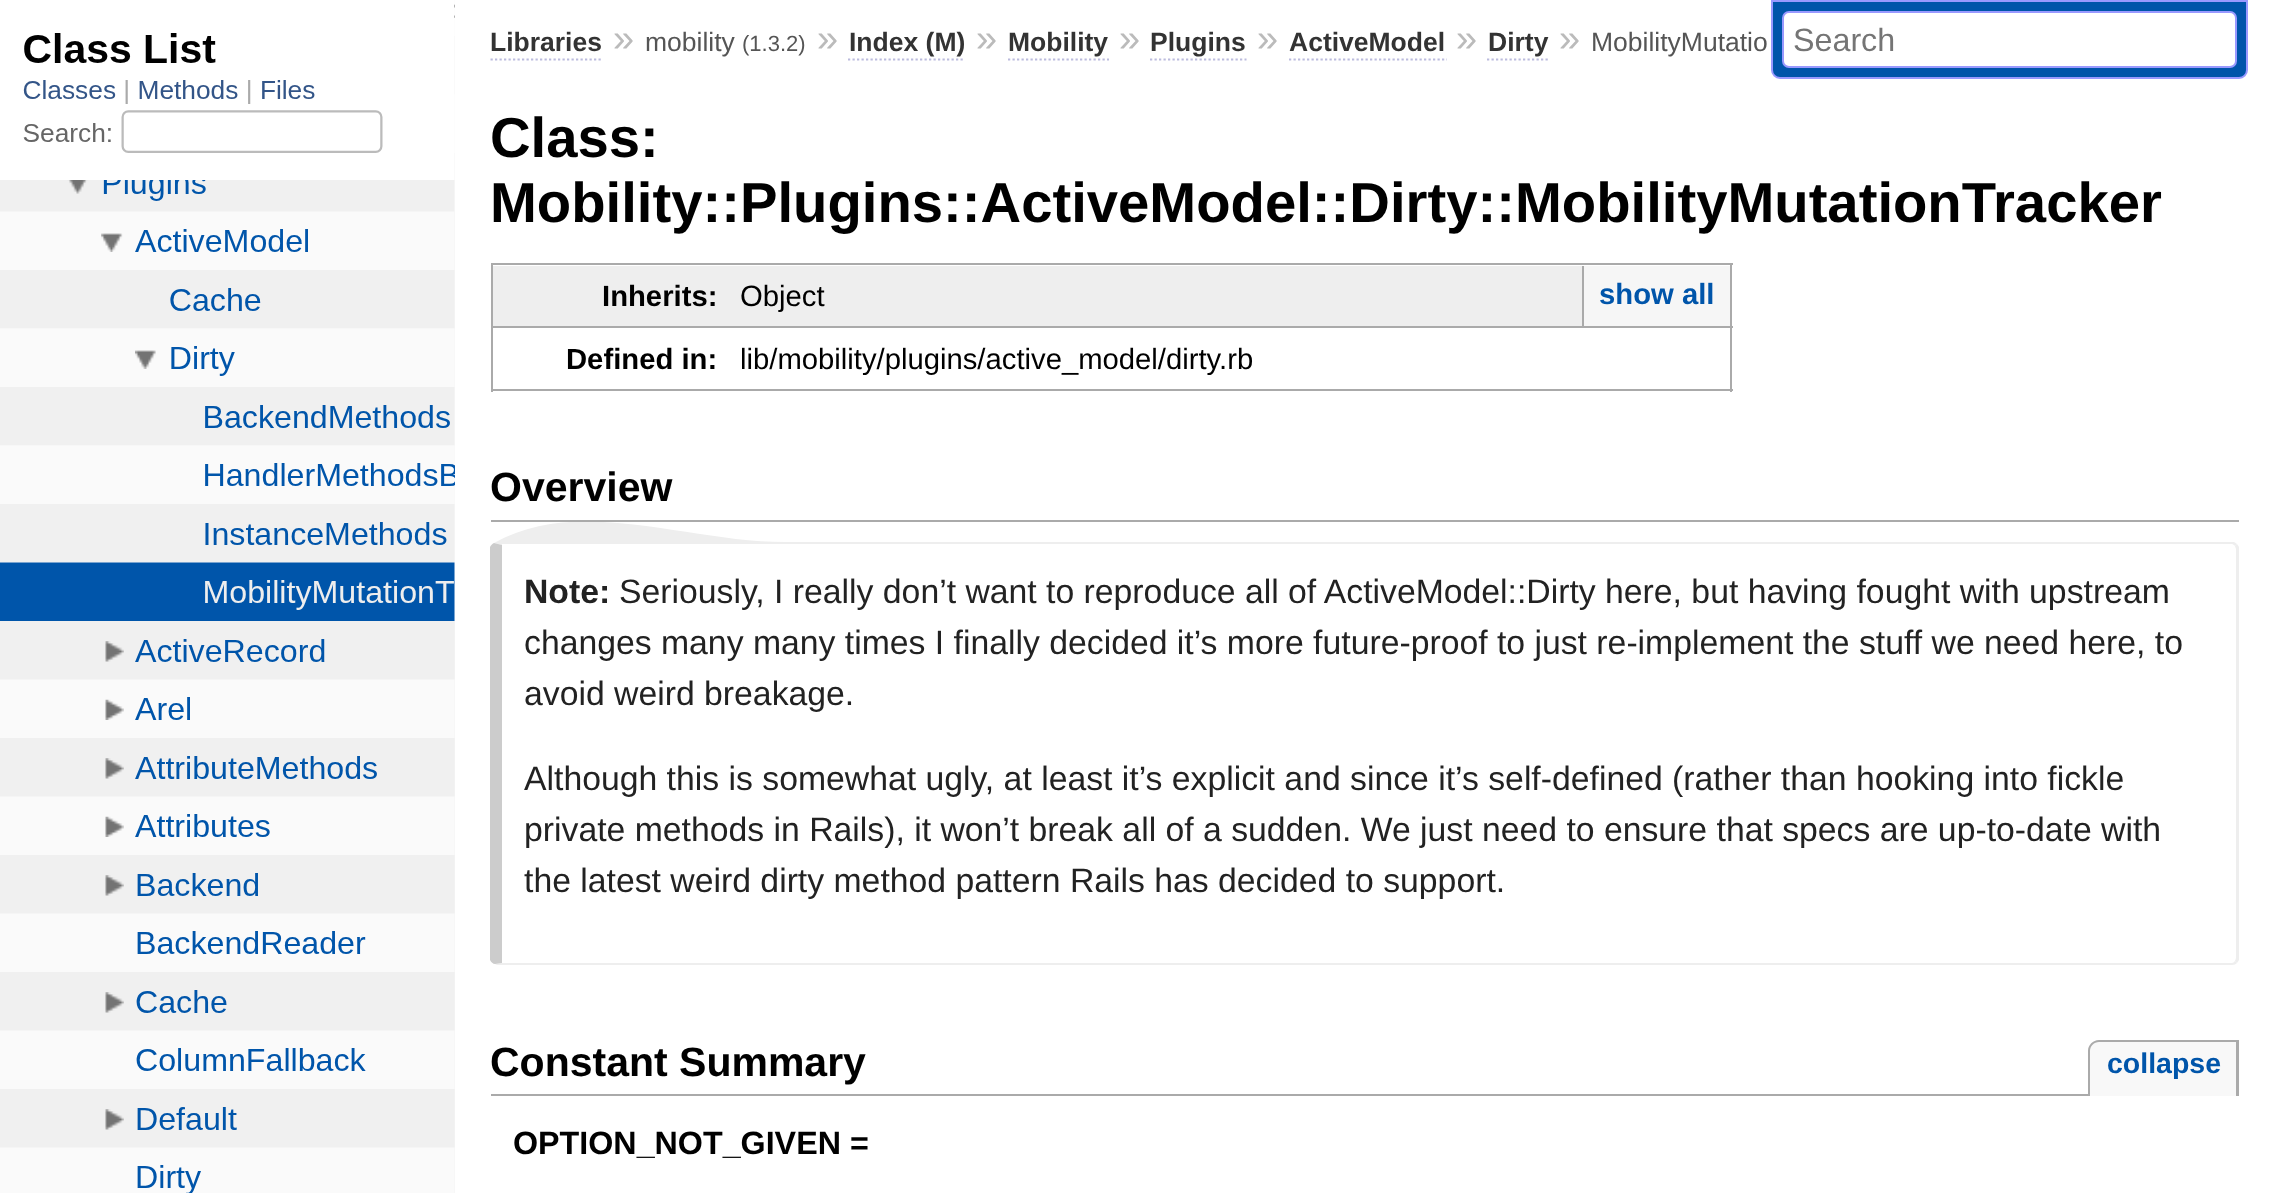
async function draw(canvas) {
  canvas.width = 2274
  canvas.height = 1193
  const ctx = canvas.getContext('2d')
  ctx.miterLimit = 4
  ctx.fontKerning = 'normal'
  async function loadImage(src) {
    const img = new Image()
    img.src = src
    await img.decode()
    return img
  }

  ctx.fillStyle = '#fff'
  ctx.fillRect(0, 0, 2274, 1193)
  ctx.drawImage(await loadImage('image0.png'), 0, 0, 455, 1193)
  ctx.font = 'bold 26.5px Liberation Sans'
  ctx.fillStyle = '#333'
  ctx.fillText('Libraries', 490, 51)
  ctx.beginPath()
  ctx.moveTo(490.5, 59.5)
  ctx.lineTo(603, 59.5)
  ctx.strokeStyle = '#bbd'
  ctx.lineWidth = 2.2
  ctx.setLineDash([2.25, 2.25])
  ctx.stroke()
  ctx.font = '38px Liberation Sans'
  ctx.fillStyle = '#bbb'
  ctx.fillText('»', 613, 51)
  ctx.font = '26.5px Liberation Sans'
  ctx.fillStyle = '#555'
  ctx.fillText('mobility', 645, 51)
  ctx.font = '22px Liberation Sans'
  ctx.fillText('(1.3.2)', 742, 51)
  ctx.font = '38px Liberation Sans'
  ctx.fillStyle = '#bbb'
  ctx.fillText('»', 817, 51)
  ctx.font = 'bold 26.5px Liberation Sans'
  ctx.fillStyle = '#333'
  ctx.fillText('Index (M)', 849, 51)
  ctx.beginPath()
  ctx.moveTo(848, 59.5)
  ctx.lineTo(965, 59.5)
  ctx.stroke()
  ctx.font = '38px Liberation Sans'
  ctx.fillStyle = '#bbb'
  ctx.fillText('»', 976, 51)
  ctx.font = 'bold 26.5px Liberation Sans'
  ctx.fillStyle = '#333'
  ctx.fillText('Mobility', 1008, 51)
  ctx.beginPath()
  ctx.moveTo(1008, 59.5)
  ctx.lineTo(1109, 59.5)
  ctx.stroke()
  ctx.font = '38px Liberation Sans'
  ctx.fillStyle = '#bbb'
  ctx.fillText('»', 1119, 51)
  ctx.font = 'bold 26.5px Liberation Sans'
  ctx.fillStyle = '#333'
  ctx.fillText('Plugins', 1150, 51)
  ctx.beginPath()
  ctx.moveTo(1150, 59.5)
  ctx.lineTo(1246.5, 59.5)
  ctx.stroke()
  ctx.font = '38px Liberation Sans'
  ctx.fillStyle = '#bbb'
  ctx.fillText('»', 1257, 51)
  ctx.font = 'bold 26.5px Liberation Sans'
  ctx.fillStyle = '#333'
  ctx.fillText('ActiveModel', 1289, 51)
  ctx.beginPath()
  ctx.moveTo(1289, 59.5)
  ctx.lineTo(1447, 59.5)
  ctx.stroke()
  ctx.font = '38px Liberation Sans'
  ctx.fillStyle = '#bbb'
  ctx.fillText('»', 1456, 51)
  ctx.font = 'bold 26.5px Liberation Sans'
  ctx.fillStyle = '#333'
  ctx.fillText('Dirty', 1488, 51)
  ctx.beginPath()
  ctx.moveTo(1487, 59.5)
  ctx.lineTo(1548, 59.5)
  ctx.stroke()
  ctx.font = '38px Liberation Sans'
  ctx.fillStyle = '#bbb'
  ctx.fillText('»', 1559, 51)
  ctx.font = '26.5px Liberation Sans'
  ctx.fillStyle = '#555'
  ctx.fillText('MobilityMutatio', 1591, 51)
  ctx.fillStyle = '#05a'
  ctx.beginPath()
  ctx.roundRect(1772, 1, 475, 77, [0, 0, 8, 8])
  ctx.fill()
  ctx.strokeStyle = '#99f'
  ctx.lineWidth = 2
  ctx.setLineDash([])
  ctx.stroke()
  ctx.fillStyle = '#fff'
  ctx.beginPath()
  ctx.roundRect(1783, 12, 453, 55, 6)
  ctx.fill()
  ctx.stroke()
  ctx.font = '32.25px Liberation Sans'
  ctx.fillStyle = '#757575'
  ctx.fillText('Search', 1793, 51)
  ctx.font = 'bold 56.25px Liberation Sans'
  ctx.fillStyle = '#000'
  ctx.fillText('Class:', 490, 157)
  ctx.fillText('Mobility::Plugins::ActiveModel::Dirty::MobilityMutationTracker', 490, 222)
  ctx.fillStyle = '#eee'
  ctx.fillRect(493, 266, 1089, 60)
  ctx.fillStyle = '#aaa'
  ctx.fillRect(491, 263, 1242, 2)
  ctx.fillRect(491, 263, 2, 63)
  ctx.font = 'bold 29.25px Liberation Sans'
  ctx.fillStyle = '#000'
  ctx.fillText('Inherits:', 602, 306)
  ctx.fillStyle = '#aaa'
  ctx.fillRect(491, 326, 1242, 2)
  ctx.fillRect(1730, 263, 2, 129)
  ctx.font = '29.25px Liberation Sans'
  ctx.fillStyle = '#000'
  ctx.fillText('Object', 740, 306)
  ctx.fillStyle = '#f6f6f6'
  ctx.fillRect(1584, 266, 146, 60)
  ctx.fillStyle = '#aaa'
  ctx.fillRect(1582, 266, 2, 60)
  ctx.font = 'bold 29.25px Liberation Sans'
  ctx.fillStyle = '#05a'
  ctx.fillText('show all', 1599, 304)
  ctx.fillStyle = '#aaa'
  ctx.fillRect(491, 389, 249, 2)
  ctx.fillRect(491, 326, 2, 66)
  ctx.fillStyle = '#000'
  ctx.fillText('Defined in:', 566, 369)
  ctx.fillStyle = '#aaa'
  ctx.fillRect(740, 389, 993, 2)
  ctx.font = '29.25px Liberation Sans'
  ctx.fillStyle = '#000'
  ctx.fillText('lib/mobility/plugins/active_model/dirty.rb', 740, 369)
  ctx.fillStyle = '#eee'
  ctx.beginPath()
  ctx.moveTo(502, 544)
  ctx.lineTo(502, 545)
  ctx.lineTo(494, 543)
  ctx.bezierCurveTo(578, 495, 688, 542, 785, 542)
  ctx.lineTo(2234, 542)
  ctx.lineTo(2237, 544)
  ctx.lineTo(2235, 546)
  ctx.bezierCurveTo(2234, 545, 2233, 544, 2232, 544)
  ctx.closePath()
  ctx.fill()
  ctx.fillStyle = '#aaa'
  ctx.fillRect(491, 520, 1748, 2)
  ctx.font = 'bold 41px Liberation Sans'
  ctx.fillStyle = '#000'
  ctx.fillText('Overview', 490, 501)
  ctx.fillStyle = '#eee'
  ctx.beginPath()
  ctx.moveTo(2239, 960)
  ctx.lineTo(2237, 963)
  ctx.lineTo(2235, 961)
  ctx.lineTo(2236, 958)
  ctx.lineTo(2236, 549)
  ctx.lineTo(2235, 546)
  ctx.lineTo(2237, 544)
  ctx.lineTo(2239, 547)
  ctx.closePath()
  ctx.fill()
  ctx.beginPath()
  ctx.moveTo(2237, 963)
  ctx.bezierCurveTo(2236, 964, 2234, 965, 2232, 965)
  ctx.lineTo(497, 965)
  ctx.lineTo(495, 964)
  ctx.lineTo(502, 963)
  ctx.lineTo(2232, 963)
  ctx.bezierCurveTo(2233, 963, 2234, 962, 2235, 961)
  ctx.closePath()
  ctx.fill()
  ctx.fillStyle = '#ccc'
  ctx.beginPath()
  ctx.moveTo(490, 547)
  ctx.bezierCurveTo(491, 545, 492, 544, 494, 543)
  ctx.lineTo(502, 545)
  ctx.lineTo(502, 963)
  ctx.lineTo(495, 964)
  ctx.bezierCurveTo(493, 964, 491, 962, 490, 960)
  ctx.closePath()
  ctx.fill()
  ctx.font = '33.75px Liberation Sans'
  ctx.fillStyle = '#222'
  ctx.fillText('Seriously, I really don’t want to reproduce all of ActiveModel::Dirty here, but having fought with upstream', 619, 603)
  ctx.fillText('changes many many times I finally decided it’s more future-proof to just re-implement the stuff we need here, to', 524, 654)
  ctx.fillText('avoid weird breakage.', 524, 705)
  ctx.fillText('Although this is somewhat ugly, at least it’s explicit and since it’s self-defined (rather than hooking into fickle', 524, 790)
  ctx.fillText('private methods in Rails), it won’t break all of a sudden. We just need to ensure that specs are up-to-date with', 524, 841)
  ctx.fillText('the latest weird dirty method pattern Rails has decided to support.', 524, 892)
  ctx.font = 'bold 33.75px Liberation Sans'
  ctx.fillText('Note:', 524, 603)
  ctx.fillStyle = '#aaa'
  ctx.fillRect(491, 1094, 1597, 2)
  ctx.font = 'bold 41px Liberation Sans'
  ctx.fillStyle = '#000'
  ctx.fillText('Constant Summary', 490, 1076)
  ctx.fillStyle = '#f8f8f8'
  ctx.beginPath()
  ctx.roundRect(2088, 1040, 151, 56, [11, 0, 0, 0])
  ctx.fill()
  ctx.fillStyle = '#aaa'
  ctx.beginPath()
  ctx.moveTo(2099, 1040)
  ctx.lineTo(2239, 1040)
  ctx.lineTo(2239, 1096)
  ctx.lineTo(2088, 1096)
  ctx.lineTo(2088, 1051)
  ctx.bezierCurveTo(2088, 1045, 2093, 1040, 2099, 1040)
  ctx.closePath()
  ctx.moveTo(2099, 1042)
  ctx.lineTo(2236, 1042)
  ctx.lineTo(2236, 1096)
  ctx.lineTo(2090, 1096)
  ctx.lineTo(2090, 1051)
  ctx.bezierCurveTo(2090, 1046, 2094, 1042, 2099, 1042)
  ctx.closePath()
  ctx.fill('evenodd')
  ctx.font = 'bold 28.5px Liberation Sans'
  ctx.fillStyle = '#05a'
  ctx.fillText('collapse', 2107, 1073)
  ctx.font = 'bold 32.25px Liberation Sans'
  ctx.fillStyle = '#000'
  ctx.fillText('OPTION_NOT_GIVEN =', 513, 1154)
}

draw(document.querySelector('canvas'))
